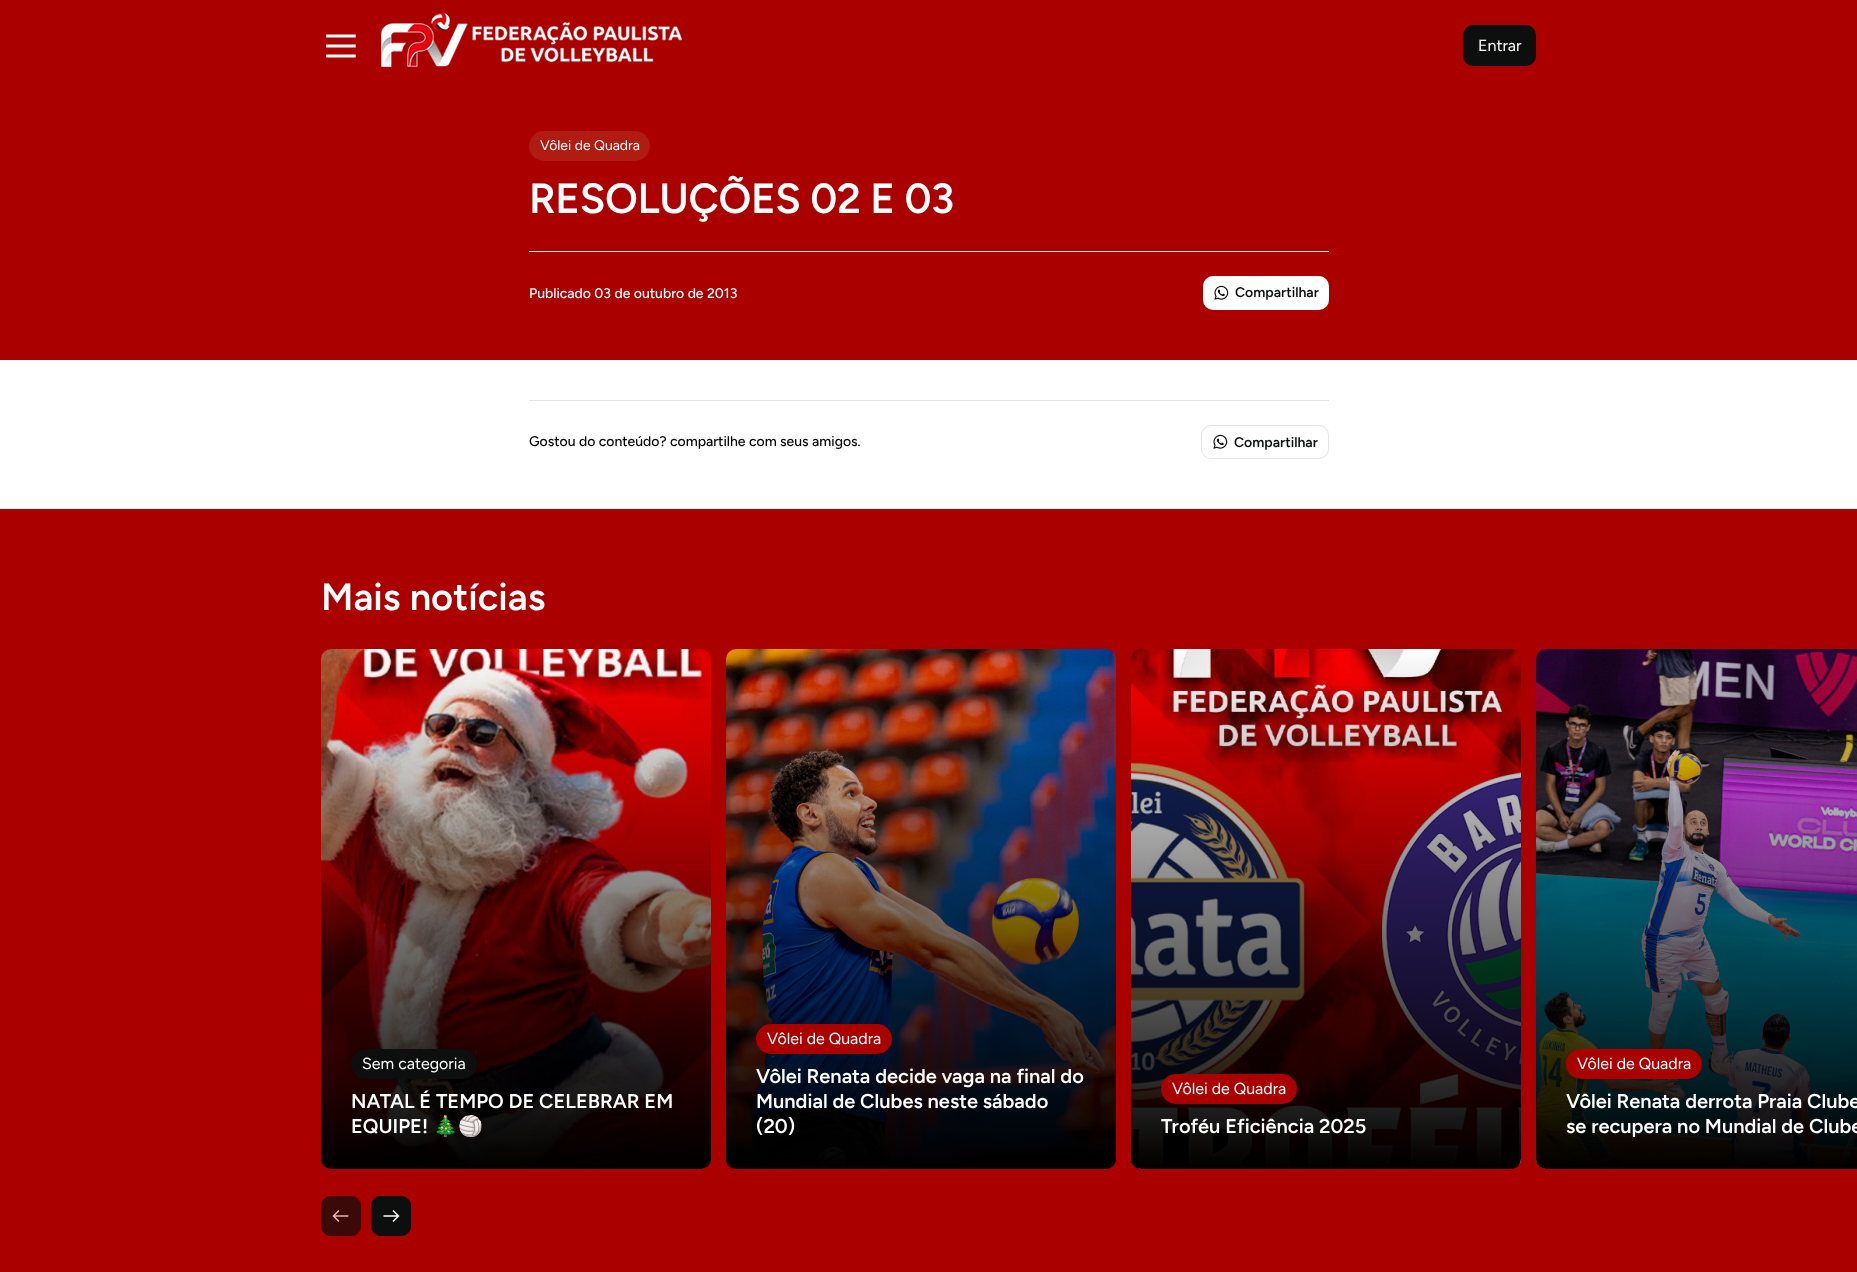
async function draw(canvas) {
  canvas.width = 1857
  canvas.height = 1272
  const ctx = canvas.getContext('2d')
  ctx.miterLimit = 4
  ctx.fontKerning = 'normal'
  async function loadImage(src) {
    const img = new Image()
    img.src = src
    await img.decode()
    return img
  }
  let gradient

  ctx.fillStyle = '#fff'
  ctx.fillRect(0, 0, 1857, 1272)
  ctx.fillStyle = '#ab0000'
  ctx.fillRect(0, 0, 1857, 360)
  ctx.drawImage(await loadImage('image0.png'), 326, 34, 30, 24)
  ctx.drawImage(await loadImage('image1.png'), 381, 12, 301, 55)
  ctx.fillStyle = '#0d0e0e'
  ctx.beginPath()
  ctx.roundRect(1463, 25, 73, 41, 10)
  ctx.fill()
  ctx.font = '16px Figtree'
  ctx.fillStyle = '#fff'
  ctx.fillText('Entrar', 1478, 51)
  ctx.fillStyle = '#b01b12'
  ctx.beginPath()
  ctx.roundRect(529, 131, 121, 30, 15)
  ctx.fill()
  ctx.font = '14px Figtree'
  ctx.fillStyle = '#fff'
  ctx.fillText('Vôlei de Quadra', 540, 150)
  ctx.letterSpacing = '-0.4px'
  ctx.font = '600 42px Figtree'
  ctx.fillText('RESOLUÇÕES 02 E 03', 529, 213)
  ctx.fillStyle = '#e5e5e5'
  ctx.fillRect(529, 251, 800, 1)
  ctx.letterSpacing = '0px'
  ctx.font = '500 14px Figtree'
  ctx.fillStyle = '#fff'
  ctx.fillText('Publicado 03 de outubro de 2013', 529, 298)
  ctx.beginPath()
  ctx.roundRect(1203, 276, 126, 34, 10)
  ctx.fill()
  ctx.drawImage(await loadImage('image2.png'), 1214, 285, 15, 15)
  ctx.font = '600 14px Figtree'
  ctx.fillStyle = '#0d0e0e'
  ctx.fillText('Compartilhar', 1235, 297)
  ctx.fillStyle = '#e5e5e5'
  ctx.fillRect(529, 400, 800, 1)
  ctx.font = '500 14px Figtree'
  ctx.fillStyle = '#000'
  ctx.fillText('Gostou do conteúdo? compartilhe com seus amigos.', 529, 446)
  ctx.drawImage(await loadImage('image2.png'), 1213, 434, 15, 15)
  ctx.beginPath()
  ctx.roundRect(1201.5, 425.5, 127, 33, 9.5)
  ctx.strokeStyle = '#e5e5e5'
  ctx.stroke()
  ctx.font = '600 14px Figtree'
  ctx.fillStyle = '#0d0e0e'
  ctx.fillText('Compartilhar', 1234, 447)
  ctx.fillStyle = '#ab0000'
  ctx.fillRect(0, 509, 1857, 763)
  ctx.font = '600 38px Figtree'
  ctx.fillStyle = '#fff'
  ctx.fillText('Mais notícias', 321, 610)
  ctx.drawImage(await loadImage('image3.png'), 321, 649, 390, 520)
  gradient = ctx.createLinearGradient(516, 649, 516, 1169)
  gradient.addColorStop(0, '#00000000')
  gradient.addColorStop(1, '#000')
  ctx.fillStyle = gradient
  ctx.beginPath()
  ctx.roundRect(321, 649, 390, 520, 10)
  ctx.fill()
  ctx.fillStyle = '#0d0e0e'
  ctx.beginPath()
  ctx.roundRect(351, 1049, 126, 30, 15)
  ctx.fill()
  ctx.font = '16px Figtree'
  ctx.fillStyle = '#fff'
  ctx.fillText('Sem categoria', 362, 1069)
  ctx.font = '600 20px Figtree'
  ctx.fillText('NATAL É TEMPO DE CELEBRAR EM', 351, 1108)
  ctx.fillText('EQUIPE!', 351, 1133)
  ctx.font = 'bold 20px Noto Color Emoji'
  ctx.fillText('🎄🏐', 433, 1133)
  ctx.drawImage(await loadImage('image4.png'), 726, 649, 390, 520)
  gradient = ctx.createLinearGradient(921, 649, 921, 1169)
  gradient.addColorStop(0, '#00000000')
  gradient.addColorStop(1, '#000')
  ctx.fillStyle = gradient
  ctx.beginPath()
  ctx.roundRect(726, 649, 390, 520, 10)
  ctx.fill()
  ctx.fillStyle = '#ab0000'
  ctx.beginPath()
  ctx.roundRect(756, 1024, 136, 30, 15)
  ctx.fill()
  ctx.font = '16px Figtree'
  ctx.fillStyle = '#fff'
  ctx.fillText('Vôlei de Quadra', 767, 1044)
  ctx.font = '600 20px Figtree'
  ctx.fillText('Vôlei Renata decide vaga na final do', 756, 1083)
  ctx.fillText('Mundial de Clubes neste sábado', 756, 1108)
  ctx.fillText('(20)', 756, 1133)
  ctx.drawImage(await loadImage('image5.png'), 1131, 649, 390, 520)
  gradient = ctx.createLinearGradient(1326, 649, 1326, 1169)
  gradient.addColorStop(0, '#00000000')
  gradient.addColorStop(1, '#000')
  ctx.fillStyle = gradient
  ctx.beginPath()
  ctx.roundRect(1131, 649, 390, 520, 10)
  ctx.fill()
  ctx.fillStyle = '#ab0000'
  ctx.beginPath()
  ctx.roundRect(1161, 1074, 136, 30, 15)
  ctx.fill()
  ctx.font = '16px Figtree'
  ctx.fillStyle = '#fff'
  ctx.fillText('Vôlei de Quadra', 1172, 1094)
  ctx.font = '600 20px Figtree'
  ctx.fillText('Troféu Eficiência 2025', 1161, 1133)
  ctx.drawImage(await loadImage('image6.png'), 1536, 649, 321, 520)
  gradient = ctx.createLinearGradient(1731, 649, 1731, 1169)
  gradient.addColorStop(0, '#00000000')
  gradient.addColorStop(1, '#000')
  ctx.fillStyle = gradient
  ctx.beginPath()
  ctx.roundRect(1536, 649, 321, 520, [10, 0, 0, 10])
  ctx.fill()
  ctx.fillStyle = '#ab0000'
  ctx.beginPath()
  ctx.roundRect(1566, 1049, 136, 30, 15)
  ctx.fill()
  ctx.font = '16px Figtree'
  ctx.fillStyle = '#fff'
  ctx.fillText('Vôlei de Quadra', 1577, 1069)
  ctx.font = '600 20px Figtree'
  ctx.fillText('Vôlei Renata derrota Praia Clube', 1566, 1108)
  ctx.fillText('se recupera no Mundial de Clube', 1566, 1133)
  ctx.drawImage(await loadImage('image7.png'), 321, 1196, 40, 40)
  ctx.drawImage(await loadImage('image8.png'), 371, 1196, 40, 40)
}

draw(document.querySelector('canvas'))
